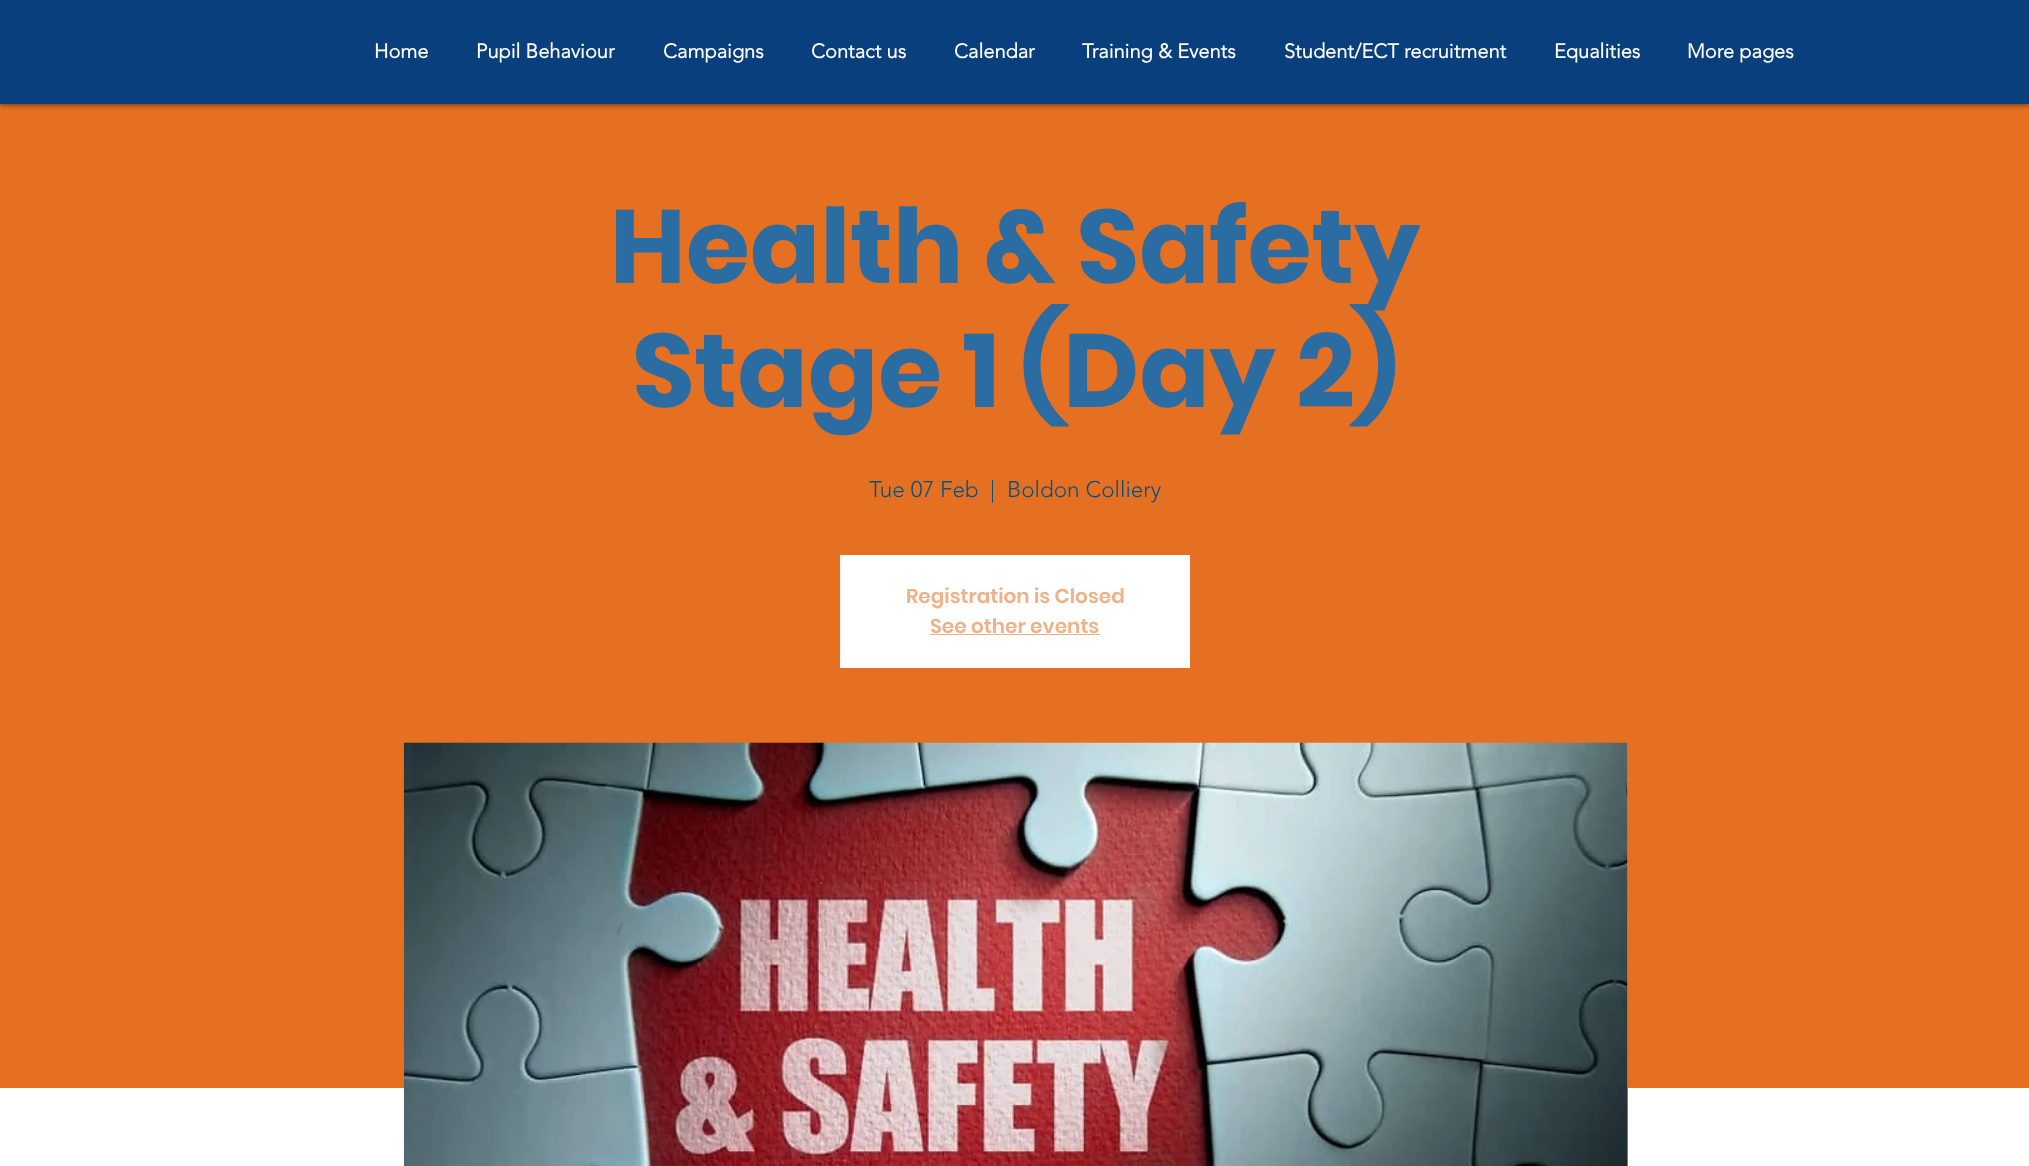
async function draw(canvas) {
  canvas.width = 2029
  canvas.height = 1166
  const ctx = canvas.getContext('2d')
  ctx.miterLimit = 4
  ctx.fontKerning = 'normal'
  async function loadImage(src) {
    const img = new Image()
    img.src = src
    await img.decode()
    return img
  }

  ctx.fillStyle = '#fff'
  ctx.fillRect(0, 0, 2029, 1166)
  ctx.fillStyle = '#e57022'
  ctx.fillRect(0, 104, 2029, 984)
  ctx.fillStyle = '#000000b3'
  ctx.filter = 'blur(3px)'
  ctx.beginPath()
  ctx.rect(0, 0, 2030, 104)
  ctx.fill()
  ctx.filter = 'none'
  ctx.fillStyle = '#093f7c'
  ctx.fillRect(0, 0, 2029, 104)
  ctx.font = 'bold 20px "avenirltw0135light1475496"'
  ctx.fillStyle = '#fff'
  ctx.fillText('Home', 374, 58)
  ctx.fillText('Pupil Behaviour', 476, 58)
  ctx.fillText('Campaigns', 663, 58)
  ctx.fillText('Contact us', 811, 58)
  ctx.fillText('Calendar', 954, 58)
  ctx.fillText('Training & Events', 1082, 58)
  ctx.fillText('Student/ECT recruitment', 1284, 58)
  ctx.fillText('Equalities', 1554, 58)
  ctx.fillText('More pages', 1687, 58)
  ctx.font = 'bold 103.75px Poppins'
  ctx.fillStyle = '#2b6ca3'
  ctx.fillText('Health & Safety', 610, 283)
  ctx.fillText('Stage 1 (Day 2)', 632, 407)
  ctx.font = '300 22.5px "avenirltw0135light1475496"'
  ctx.fillStyle = '#045184'
  ctx.fillText('Tue 07 Feb', 869, 497)
  ctx.fillText('|', 990, 497)
  ctx.fillText('Boldon Colliery', 1007, 497)
  ctx.fillStyle = '#fff'
  ctx.fillRect(840, 555, 350, 113)
  ctx.font = '600 20px Poppins'
  ctx.fillStyle = '#eeb188'
  ctx.fillText('Registration is Closed', 906, 603)
  ctx.fillText('See other events', 930, 633)
  ctx.fillRect(930, 634, 170, 1)
  ctx.fillStyle = '#709dd1'
  ctx.fillRect(1627, 743, 1, 423)
  ctx.drawImage(await loadImage('image0.png'), 403, 742, 1225, 424)
}

draw(document.querySelector('canvas'))
